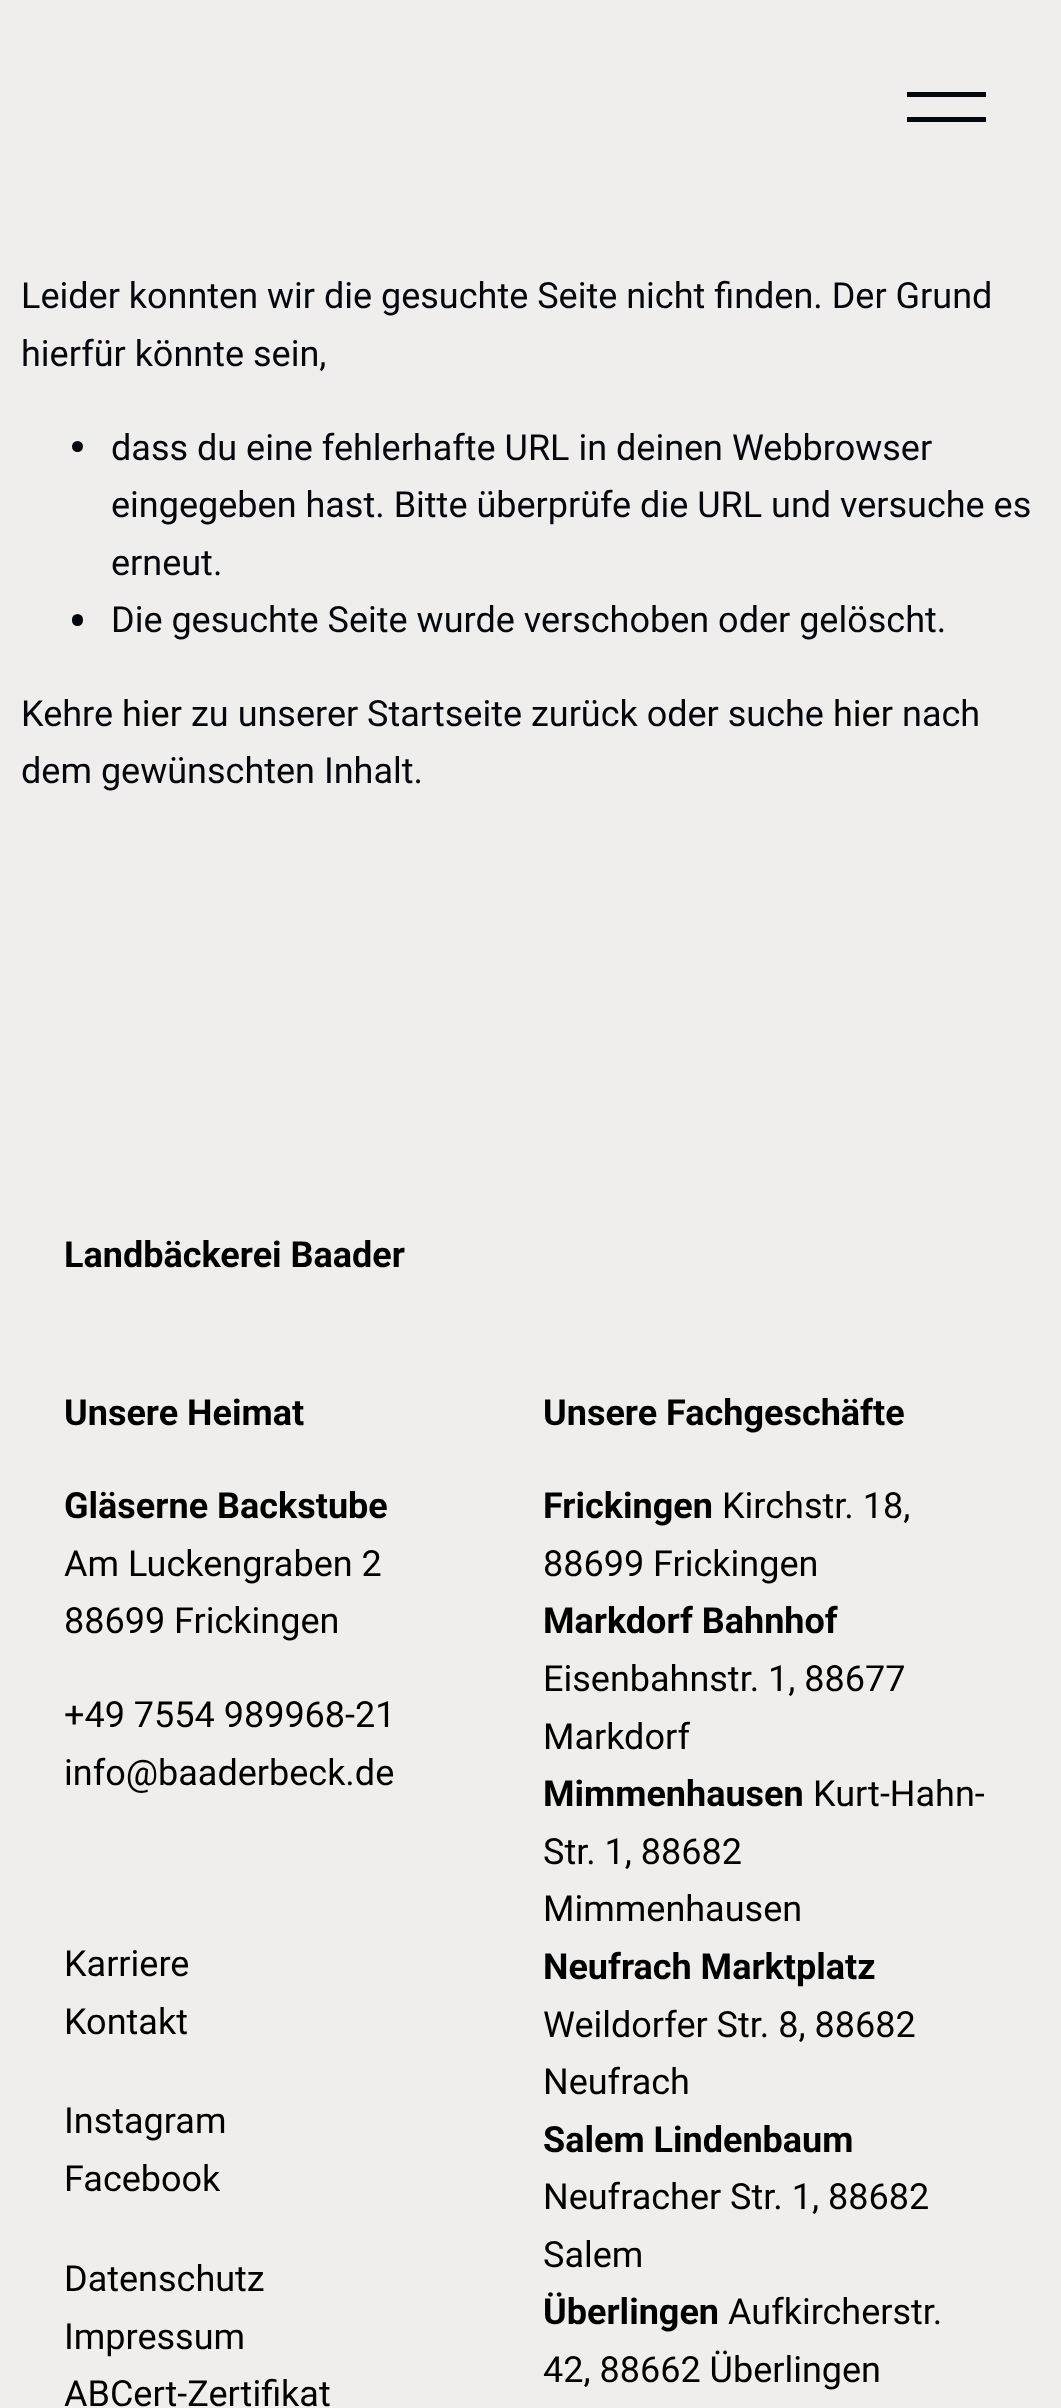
async function draw(canvas) {
  canvas.width = 1061
  canvas.height = 2408
  const ctx = canvas.getContext('2d')
  ctx.miterLimit = 4
  ctx.fontKerning = 'normal'

  ctx.fillStyle = '#efeeec'
  ctx.fillRect(0, 0, 1061, 2408)
  ctx.fillStyle = '#04070e'
  ctx.fillRect(907, 92, 79, 5)
  ctx.fillRect(907, 117, 79, 5)
  ctx.font = '36px Roboto'
  ctx.fillText('Leider konnten wir die gesuchte Seite nicht finden. Der Grund', 21, 308)
  ctx.fillText('hierfür könnte sein,', 21, 366)
  ctx.beginPath()
  ctx.arc(77.5, 446.5, 5.5, 0, 2 * Math.PI)
  ctx.fill()
  ctx.fillText('dass du eine fehlerhafte URL in deinen Webbrowser', 111, 460)
  ctx.fillText('eingegeben hast. Bitte überprüfe die URL und versuche es', 111, 517)
  ctx.fillText('erneut.', 111, 575)
  ctx.beginPath()
  ctx.roundRect(72, 614, 11, 12, 5.5)
  ctx.fill()
  ctx.fillText('Die gesuchte Seite wurde verschoben oder gelöscht.', 111, 632)
  ctx.fillText('Kehre', 21, 726)
  ctx.fillStyle = '#000'
  ctx.fillText('hier', 122, 726)
  ctx.fillStyle = '#04070e'
  ctx.fillText('zu unserer Startseite zurück oder suche', 191, 726)
  ctx.fillStyle = '#000'
  ctx.fillText('hier', 833, 726)
  ctx.fillStyle = '#04070e'
  ctx.fillText('nach', 902, 726)
  ctx.fillText('dem gewünschten Inhalt.', 21, 783)
  ctx.font = 'bold 36px Roboto'
  ctx.fillStyle = '#000'
  ctx.fillText('Landbäckerei Baader', 64, 1267)
  ctx.fillText('Unsere Heimat', 64, 1425)
  ctx.fillText('Gläserne Backstube', 64, 1518)
  ctx.font = '36px Roboto'
  ctx.fillText('Am Luckengraben 2', 64, 1576)
  ctx.fillText('88699 Frickingen', 64, 1633)
  ctx.fillText('+49 7554 989968-21', 64, 1727)
  ctx.fillText('info@baaderbeck.de', 64, 1785)
  ctx.font = 'bold 36px Roboto'
  ctx.fillText('Unsere Fachgeschäfte', 543, 1425)
  ctx.fillText('Frickingen', 543, 1518)
  ctx.font = '36px Roboto'
  ctx.fillText('Kirchstr. 18,', 722, 1518)
  ctx.fillText('88699 Frickingen', 543, 1576)
  ctx.font = 'bold 36px Roboto'
  ctx.fillText('Markdorf Bahnhof', 543, 1633)
  ctx.font = '36px Roboto'
  ctx.fillText('Eisenbahnstr. 1, 88677', 543, 1691)
  ctx.fillText('Markdorf', 543, 1749)
  ctx.font = 'bold 36px Roboto'
  ctx.fillText('Mimmenhausen', 543, 1806)
  ctx.font = '36px Roboto'
  ctx.fillText('Kurt-Hahn-', 813, 1806)
  ctx.fillText('Str. 1, 88682', 543, 1864)
  ctx.fillText('Mimmenhausen', 543, 1921)
  ctx.font = 'bold 36px Roboto'
  ctx.fillText('Neufrach Marktplatz', 543, 1979)
  ctx.font = '36px Roboto'
  ctx.fillText('Weildorfer Str. 8, 88682', 543, 2037)
  ctx.fillText('Neufrach', 543, 2094)
  ctx.font = 'bold 36px Roboto'
  ctx.fillText('Salem Lindenbaum', 543, 2152)
  ctx.font = '36px Roboto'
  ctx.fillText('Neufracher Str. 1, 88682', 543, 2209)
  ctx.fillText('Salem', 543, 2267)
  ctx.font = 'bold 36px Roboto'
  ctx.fillText('Überlingen', 543, 2324)
  ctx.font = '36px Roboto'
  ctx.fillText('Aufkircherstr.', 728, 2324)
  ctx.fillText('42, 88662 Überlingen', 543, 2382)
  ctx.fillText('Karriere', 64, 1976)
  ctx.fillText('Kontakt', 64, 2034)
  ctx.fillText('Instagram', 64, 2133)
  ctx.fillText('Facebook', 64, 2191)
  ctx.fillText('Datenschutz', 64, 2291)
  ctx.fillText('Impressum', 64, 2349)
  ctx.fillText('ABCert-Zertifikat', 64, 2406)
}

draw(document.querySelector('canvas'))
